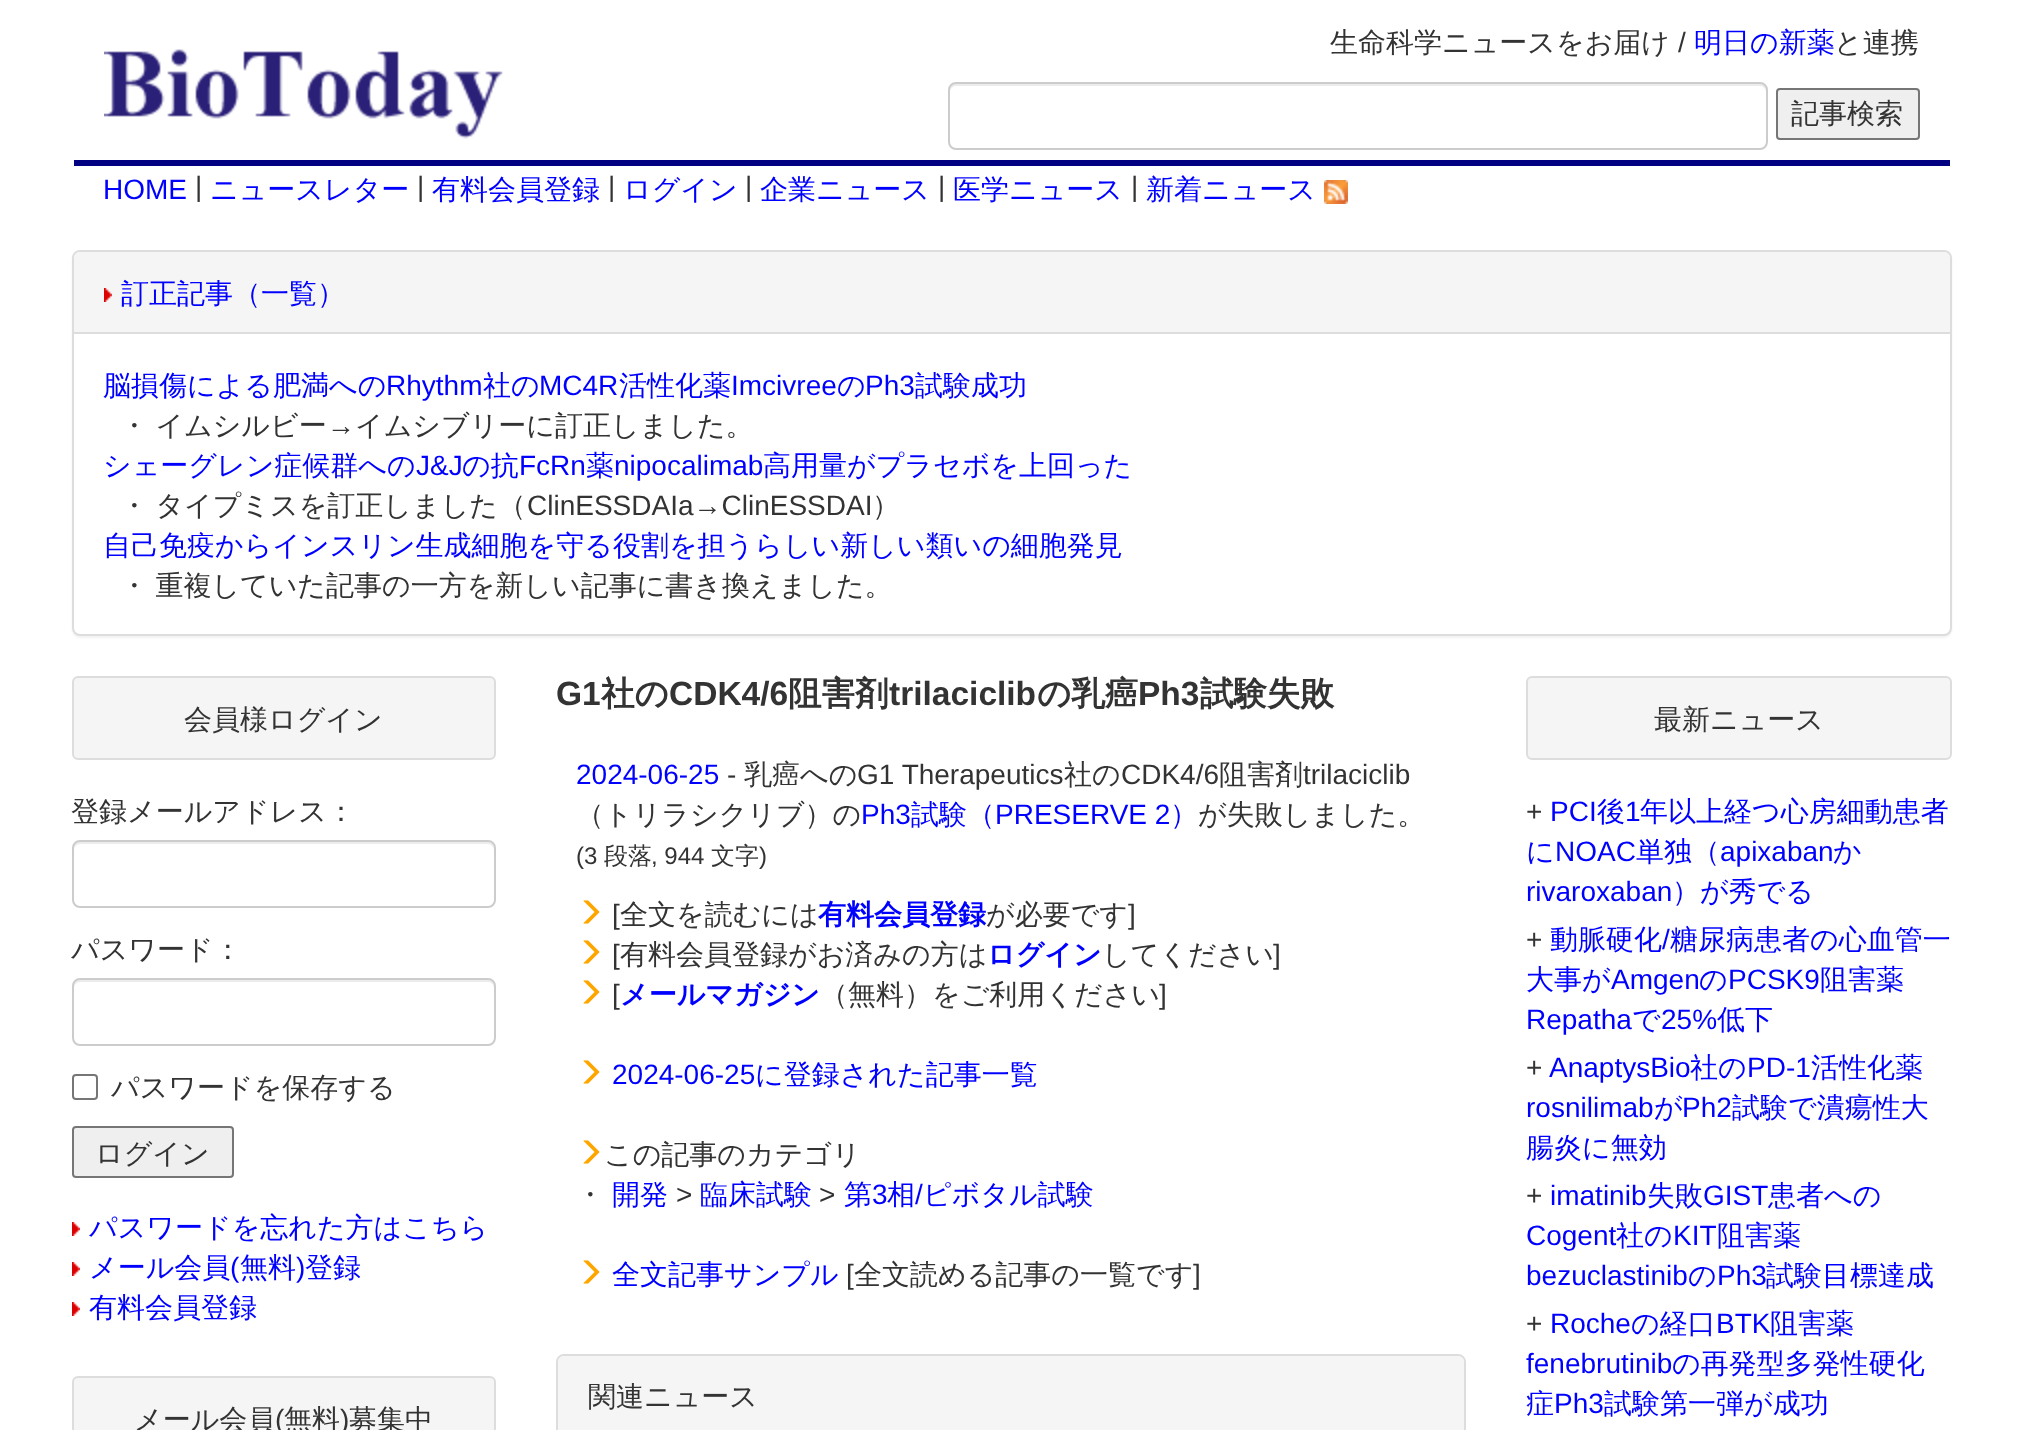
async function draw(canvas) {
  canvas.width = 2021
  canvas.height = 1430
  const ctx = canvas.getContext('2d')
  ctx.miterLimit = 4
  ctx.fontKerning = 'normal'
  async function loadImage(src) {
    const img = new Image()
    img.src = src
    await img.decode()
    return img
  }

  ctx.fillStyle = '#fff'
  ctx.fillRect(0, 0, 2021, 1430)
  ctx.fillStyle = '#000080'
  ctx.fillRect(74, 160, 1876, 6)
  ctx.drawImage(await loadImage('image0.png'), 104, 49, 399, 90)
  ctx.font = '500 28px WenQuanYi Zen Hei'
  ctx.fillStyle = '#333'
  ctx.fillText('生命科学ニュースをお届け', 1330, 52)
  ctx.font = '28px Liberation Sans'
  ctx.fillText('/', 1678, 52)
  ctx.font = '500 28px WenQuanYi Zen Hei'
  ctx.fillStyle = '#00f'
  ctx.fillText('明日の新薬', 1694, 52)
  ctx.fillStyle = '#333'
  ctx.fillText('と連携', 1834, 52)
  ctx.fillStyle = '#ececec'
  ctx.beginPath()
  ctx.moveTo(956, 86)
  ctx.lineTo(1760, 86)
  ctx.bezierCurveTo(1763, 86, 1766, 89, 1766, 92)
  ctx.bezierCurveTo(1766, 88, 1765, 84, 1760, 84)
  ctx.lineTo(956, 84)
  ctx.bezierCurveTo(951, 84, 950, 88, 950, 92)
  ctx.bezierCurveTo(950, 89, 953, 86, 956, 86)
  ctx.closePath()
  ctx.fill()
  ctx.beginPath()
  ctx.roundRect(949, 83, 818, 66, 7)
  ctx.strokeStyle = '#ccc'
  ctx.lineWidth = 2
  ctx.stroke()
  ctx.fillStyle = '#efefef'
  ctx.beginPath()
  ctx.roundRect(1777, 89, 142, 50, 3)
  ctx.fill()
  ctx.strokeStyle = '#767676'
  ctx.stroke()
  ctx.fillStyle = '#333'
  ctx.fillText('記事検索', 1791, 123)
  ctx.font = '28px Liberation Sans'
  ctx.fillStyle = '#00f'
  ctx.fillText('HOME', 103, 199)
  ctx.fillStyle = '#333'
  ctx.fillText('|', 195, 196)
  ctx.font = '500 28px WenQuanYi Zen Hei'
  ctx.fillStyle = '#00f'
  ctx.fillText('ニュースレター', 210, 199)
  ctx.font = '28px Liberation Sans'
  ctx.fillStyle = '#333'
  ctx.fillText('|', 417, 196)
  ctx.font = '500 28px WenQuanYi Zen Hei'
  ctx.fillStyle = '#00f'
  ctx.fillText('有料会員登録', 432, 199)
  ctx.font = '28px Liberation Sans'
  ctx.fillStyle = '#333'
  ctx.fillText('|', 608, 196)
  ctx.font = '500 28px WenQuanYi Zen Hei'
  ctx.fillStyle = '#00f'
  ctx.fillText('ログイン', 623, 199)
  ctx.font = '28px Liberation Sans'
  ctx.fillStyle = '#333'
  ctx.fillText('|', 745, 196)
  ctx.font = '500 28px WenQuanYi Zen Hei'
  ctx.fillStyle = '#00f'
  ctx.fillText('企業ニュース', 760, 199)
  ctx.font = '28px Liberation Sans'
  ctx.fillStyle = '#333'
  ctx.fillText('|', 938, 196)
  ctx.font = '500 28px WenQuanYi Zen Hei'
  ctx.fillStyle = '#00f'
  ctx.fillText('医学ニュース', 953, 199)
  ctx.font = '28px Liberation Sans'
  ctx.fillStyle = '#333'
  ctx.fillText('|', 1131, 196)
  ctx.font = '500 28px WenQuanYi Zen Hei'
  ctx.fillStyle = '#00f'
  ctx.fillText('新着ニュース', 1146, 199)
  ctx.drawImage(await loadImage('image1.png'), 1324, 180, 24, 24)
  ctx.fillStyle = '#0000000d'
  ctx.filter = 'blur(1px)'
  ctx.beginPath()
  ctx.roundRect(72, 252, 1880, 386, 8)
  ctx.fill()
  ctx.filter = 'none'
  ctx.fillStyle = '#fff'
  ctx.beginPath()
  ctx.roundRect(73, 251, 1878, 384, 7)
  ctx.fill()
  ctx.strokeStyle = '#ddd'
  ctx.stroke()
  ctx.fillStyle = '#f5f5f5'
  ctx.beginPath()
  ctx.roundRect(74, 252, 1876, 82, [6, 6, 0, 0])
  ctx.fill()
  ctx.fillStyle = '#ddd'
  ctx.fillRect(74, 332, 1876, 2)
  ctx.drawImage(await loadImage('image2.png'), 104, 288, 8, 14)
  ctx.fillStyle = '#00f'
  ctx.fillText('訂正記事（一覧）', 121, 303)
  ctx.fillText('脳損傷による肥満への', 103, 395)
  ctx.font = '28px Liberation Sans'
  ctx.fillText('Rhythm', 386, 395)
  ctx.font = '500 28px WenQuanYi Zen Hei'
  ctx.fillText('社の', 483, 395)
  ctx.font = '28px Liberation Sans'
  ctx.fillText('MC4R', 539, 395)
  ctx.font = '500 28px WenQuanYi Zen Hei'
  ctx.fillText('活性化薬', 619, 395)
  ctx.font = '28px Liberation Sans'
  ctx.fillText('Imcivree', 731, 395)
  ctx.font = '500 28px WenQuanYi Zen Hei'
  ctx.fillText('の', 837, 395)
  ctx.font = '28px Liberation Sans'
  ctx.fillText('Ph3', 865, 395)
  ctx.font = '500 28px WenQuanYi Zen Hei'
  ctx.fillText('試験成功', 915, 395)
  ctx.wordSpacing = '-1px'
  ctx.fillStyle = '#333'
  ctx.fillText('・ イムシルビー', 120, 435)
  ctx.wordSpacing = '0px'
  ctx.font = '28px Liberation Sans'
  ctx.fillText('→', 327, 435)
  ctx.font = '500 28px WenQuanYi Zen Hei'
  ctx.fillText('イムシブリーに訂正しました。', 355, 435)
  ctx.fillStyle = '#00f'
  ctx.fillText('シェーグレン症候群への', 103, 475)
  ctx.font = '28px Liberation Sans'
  ctx.fillText('J&J', 416, 475)
  ctx.font = '500 28px WenQuanYi Zen Hei'
  ctx.fillText('の抗', 462, 475)
  ctx.font = '28px Liberation Sans'
  ctx.fillText('FcRn', 519, 475)
  ctx.font = '500 28px WenQuanYi Zen Hei'
  ctx.fillText('薬', 586, 475)
  ctx.font = '28px Liberation Sans'
  ctx.fillText('nipocalimab', 614, 475)
  ctx.font = '500 28px WenQuanYi Zen Hei'
  ctx.fillText('高用量がプラセボを上回った', 763, 475)
  ctx.wordSpacing = '-1px'
  ctx.fillStyle = '#333'
  ctx.fillText('・ タイプミスを訂正しました（', 120, 515)
  ctx.wordSpacing = '0px'
  ctx.font = '28px Liberation Sans'
  ctx.fillText('ClinESSDAIa→ClinESSDAI', 527, 515)
  ctx.font = '500 28px WenQuanYi Zen Hei'
  ctx.fillText('）', 872, 515)
  ctx.fillStyle = '#00f'
  ctx.fillText('自己免疫からインスリン生成細胞を守る役割を担うらしい新しい類いの細胞発見', 103, 555)
  ctx.wordSpacing = '-1px'
  ctx.fillStyle = '#333'
  ctx.fillText('・ 重複していた記事の一方を新しい記事に書き換えました。', 120, 595)
  ctx.fillStyle = '#f5f5f5'
  ctx.beginPath()
  ctx.roundRect(73, 677, 422, 82, 5)
  ctx.fill()
  ctx.stroke()
  ctx.wordSpacing = '0px'
  ctx.fillStyle = '#333'
  ctx.fillText('会員様ログイン', 184, 729)
  ctx.fillText('登録メールアドレス：', 71, 821)
  ctx.fillStyle = '#ececec'
  ctx.beginPath()
  ctx.moveTo(80, 844)
  ctx.lineTo(488, 844)
  ctx.bezierCurveTo(491, 844, 494, 847, 494, 850)
  ctx.lineTo(494, 848)
  ctx.bezierCurveTo(494, 845, 491, 842, 488, 842)
  ctx.lineTo(80, 842)
  ctx.bezierCurveTo(77, 842, 74, 845, 74, 848)
  ctx.lineTo(74, 850)
  ctx.bezierCurveTo(74, 847, 77, 844, 80, 844)
  ctx.closePath()
  ctx.fill()
  ctx.beginPath()
  ctx.roundRect(73, 841, 422, 66, 7)
  ctx.strokeStyle = '#ccc'
  ctx.stroke()
  ctx.fillStyle = '#333'
  ctx.fillText('パスワード：', 71, 959)
  ctx.fillStyle = '#ececec'
  ctx.beginPath()
  ctx.moveTo(80, 982)
  ctx.lineTo(488, 982)
  ctx.bezierCurveTo(491, 982, 494, 985, 494, 988)
  ctx.lineTo(494, 986)
  ctx.bezierCurveTo(494, 983, 491, 980, 488, 980)
  ctx.lineTo(80, 980)
  ctx.bezierCurveTo(77, 980, 74, 983, 74, 986)
  ctx.lineTo(74, 988)
  ctx.bezierCurveTo(74, 985, 77, 982, 80, 982)
  ctx.closePath()
  ctx.fill()
  ctx.beginPath()
  ctx.roundRect(73, 979, 422, 66, 7)
  ctx.stroke()
  ctx.beginPath()
  ctx.roundRect(73, 1075, 24, 24, 3)
  ctx.strokeStyle = '#767676'
  ctx.stroke()
  ctx.fillStyle = '#333'
  ctx.fillText('パスワードを保存する', 111, 1097)
  ctx.fillStyle = '#efefef'
  ctx.beginPath()
  ctx.roundRect(73, 1127, 160, 50, 3)
  ctx.fill()
  ctx.stroke()
  ctx.fillStyle = '#333'
  ctx.fillText('ログイン', 95, 1163)
  ctx.drawImage(await loadImage('image3.png'), 72, 1222, 8, 14)
  ctx.fillStyle = '#00f'
  ctx.fillText('パスワードを忘れた方はこちら', 89, 1237)
  ctx.drawImage(await loadImage('image3.png'), 72, 1262, 8, 14)
  ctx.fillText('メール会員', 89, 1277)
  ctx.font = '28px Liberation Sans'
  ctx.fillText('(', 230, 1277)
  ctx.font = '500 28px WenQuanYi Zen Hei'
  ctx.fillText('無料', 240, 1277)
  ctx.font = '28px Liberation Sans'
  ctx.fillText(')', 296, 1277)
  ctx.font = '500 28px WenQuanYi Zen Hei'
  ctx.fillText('登録', 305, 1277)
  ctx.drawImage(await loadImage('image3.png'), 72, 1302, 8, 14)
  ctx.fillText('有料会員登録', 89, 1317)
  ctx.fillStyle = '#f5f5f5'
  ctx.beginPath()
  ctx.roundRect(73, 1377, 422, 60, 5)
  ctx.fill()
  ctx.strokeStyle = '#ddd'
  ctx.stroke()
  ctx.fillStyle = '#333'
  ctx.fillText('メール会員', 134, 1429)
  ctx.font = '28px Liberation Sans'
  ctx.fillText('(', 275, 1429)
  ctx.font = '500 28px WenQuanYi Zen Hei'
  ctx.fillText('無料', 284, 1429)
  ctx.font = '28px Liberation Sans'
  ctx.fillText(')', 340, 1429)
  ctx.font = '500 28px WenQuanYi Zen Hei'
  ctx.fillText('募集中', 349, 1429)
  ctx.font = 'bold 33.5px Liberation Sans'
  ctx.fillText('G1', 556, 705)
  ctx.font = 'bold 33.5px WenQuanYi Zen Hei'
  ctx.fillText('社の', 601, 705)
  ctx.font = 'bold 33.5px Liberation Sans'
  ctx.fillText('CDK4/6', 669, 705)
  ctx.font = 'bold 33.5px WenQuanYi Zen Hei'
  ctx.fillText('阻害剤', 788, 705)
  ctx.font = 'bold 33.5px Liberation Sans'
  ctx.fillText('trilaciclib', 889, 705)
  ctx.font = 'bold 33.5px WenQuanYi Zen Hei'
  ctx.fillText('の乳癌', 1037, 705)
  ctx.font = 'bold 33.5px Liberation Sans'
  ctx.fillText('Ph3', 1138, 705)
  ctx.font = 'bold 33.5px WenQuanYi Zen Hei'
  ctx.fillText('試験失敗', 1200, 705)
  ctx.font = '28px Liberation Sans'
  ctx.fillStyle = '#00f'
  ctx.fillText('2024-06-25', 576, 784)
  ctx.fillStyle = '#333'
  ctx.fillText('-', 727, 784)
  ctx.font = '500 28px WenQuanYi Zen Hei'
  ctx.fillText('乳癌への', 744, 784)
  ctx.font = '28px Liberation Sans'
  ctx.fillText('G1 Therapeutics', 857, 784)
  ctx.font = '500 28px WenQuanYi Zen Hei'
  ctx.fillText('社の', 1064, 784)
  ctx.font = '28px Liberation Sans'
  ctx.fillText('CDK4/6', 1121, 784)
  ctx.font = '500 28px WenQuanYi Zen Hei'
  ctx.fillText('阻害剤', 1219, 784)
  ctx.font = '28px Liberation Sans'
  ctx.fillText('trilaciclib', 1303, 784)
  ctx.font = '500 28px WenQuanYi Zen Hei'
  ctx.fillText('（トリラシクリブ）の', 576, 824)
  ctx.font = '28px Liberation Sans'
  ctx.fillStyle = '#00f'
  ctx.fillText('Ph3', 861, 824)
  ctx.font = '500 28px WenQuanYi Zen Hei'
  ctx.fillText('試験（', 911, 824)
  ctx.font = '28px Liberation Sans'
  ctx.fillText('PRESERVE 2', 995, 824)
  ctx.font = '500 28px WenQuanYi Zen Hei'
  ctx.fillText('）', 1170, 824)
  ctx.fillStyle = '#333'
  ctx.fillText('が失敗しました。', 1198, 824)
  ctx.font = '24px Liberation Sans'
  ctx.fillText('(3', 576, 864)
  ctx.font = '500 24px WenQuanYi Zen Hei'
  ctx.fillText('段落', 604, 864)
  ctx.font = '24px Liberation Sans'
  ctx.fillText(', 944', 651, 864)
  ctx.font = '500 24px WenQuanYi Zen Hei'
  ctx.fillText('文字', 711, 864)
  ctx.font = '24px Liberation Sans'
  ctx.fillText(')', 759, 864)
  ctx.drawImage(await loadImage('image4.png'), 583, 900, 17, 24)
  ctx.font = '28px Liberation Sans'
  ctx.fillText('[', 612, 924)
  ctx.font = '500 28px WenQuanYi Zen Hei'
  ctx.fillText('全文を読むには', 620, 924)
  ctx.font = 'bold 28px WenQuanYi Zen Hei'
  ctx.fillStyle = '#00f'
  ctx.fillText('有料会員登録', 818, 924)
  ctx.font = '500 28px WenQuanYi Zen Hei'
  ctx.fillStyle = '#333'
  ctx.fillText('が必要です', 986, 924)
  ctx.font = '28px Liberation Sans'
  ctx.fillText(']', 1128, 924)
  ctx.drawImage(await loadImage('image4.png'), 583, 940, 17, 24)
  ctx.fillText('[', 612, 964)
  ctx.font = '500 28px WenQuanYi Zen Hei'
  ctx.fillText('有料会員登録がお済みの方は', 620, 964)
  ctx.font = 'bold 28px WenQuanYi Zen Hei'
  ctx.fillStyle = '#00f'
  ctx.fillText('ログイン', 987, 964)
  ctx.font = '500 28px WenQuanYi Zen Hei'
  ctx.fillStyle = '#333'
  ctx.fillText('してください', 1102, 964)
  ctx.font = '28px Liberation Sans'
  ctx.fillText(']', 1273, 964)
  ctx.drawImage(await loadImage('image4.png'), 583, 980, 17, 24)
  ctx.fillText('[', 612, 1004)
  ctx.font = 'bold 28px WenQuanYi Zen Hei'
  ctx.fillStyle = '#00f'
  ctx.fillText('メールマガジン', 620, 1004)
  ctx.font = '500 28px WenQuanYi Zen Hei'
  ctx.fillStyle = '#333'
  ctx.fillText('（無料）をご利用ください', 820, 1004)
  ctx.font = '28px Liberation Sans'
  ctx.fillText(']', 1159, 1004)
  ctx.drawImage(await loadImage('image4.png'), 583, 1060, 17, 24)
  ctx.fillStyle = '#00f'
  ctx.fillText('2024-06-25', 612, 1084)
  ctx.font = '500 28px WenQuanYi Zen Hei'
  ctx.fillText('に登録された記事一覧', 755, 1084)
  ctx.drawImage(await loadImage('image4.png'), 583, 1140, 17, 24)
  ctx.fillStyle = '#333'
  ctx.fillText('この記事のカテゴリ', 604, 1164)
  ctx.fillText('・', 576, 1204)
  ctx.fillStyle = '#00f'
  ctx.fillText('開発', 612, 1204)
  ctx.font = '28px Liberation Sans'
  ctx.fillStyle = '#333'
  ctx.fillText('>', 676, 1204)
  ctx.font = '500 28px WenQuanYi Zen Hei'
  ctx.fillStyle = '#00f'
  ctx.fillText('臨床試験', 700, 1204)
  ctx.font = '28px Liberation Sans'
  ctx.fillStyle = '#333'
  ctx.fillText('>', 819, 1204)
  ctx.font = '500 28px WenQuanYi Zen Hei'
  ctx.fillStyle = '#00f'
  ctx.fillText('第', 844, 1204)
  ctx.font = '28px Liberation Sans'
  ctx.fillText('3', 872, 1204)
  ctx.font = '500 28px WenQuanYi Zen Hei'
  ctx.fillText('相', 887, 1204)
  ctx.font = '28px Liberation Sans'
  ctx.fillText('/', 915, 1204)
  ctx.font = '500 28px WenQuanYi Zen Hei'
  ctx.fillText('ピボタル試験', 923, 1204)
  ctx.drawImage(await loadImage('image4.png'), 583, 1260, 17, 24)
  ctx.fillText('全文記事サンプル', 612, 1284)
  ctx.font = '28px Liberation Sans'
  ctx.fillStyle = '#333'
  ctx.fillText('[', 846, 1284)
  ctx.font = '500 28px WenQuanYi Zen Hei'
  ctx.fillText('全文読める記事の一覧です', 854, 1284)
  ctx.font = '28px Liberation Sans'
  ctx.fillText(']', 1193, 1284)
  ctx.beginPath()
  ctx.roundRect(557, 1355, 908, 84, 7)
  ctx.stroke()
  ctx.fillStyle = '#f5f5f5'
  ctx.beginPath()
  ctx.moveTo(564, 1356)
  ctx.lineTo(1458, 1356)
  ctx.bezierCurveTo(1461.5, 1356, 1464, 1358.5, 1464, 1362)
  ctx.lineTo(1464, 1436)
  ctx.lineTo(558, 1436)
  ctx.lineTo(558, 1362)
  ctx.bezierCurveTo(558, 1358.5, 560.5, 1356, 564, 1356)
  ctx.closePath()
  ctx.fill()
  ctx.font = '500 28px WenQuanYi Zen Hei'
  ctx.fillStyle = '#333'
  ctx.fillText('関連ニュース', 588, 1406)
  ctx.fillStyle = '#f5f5f5'
  ctx.beginPath()
  ctx.roundRect(1527, 677, 424, 82, 5)
  ctx.fill()
  ctx.stroke()
  ctx.fillStyle = '#333'
  ctx.fillText('最新ニュース', 1654, 729)
  ctx.font = '28px Liberation Sans'
  ctx.fillText('+', 1526, 821)
  ctx.fillStyle = '#00f'
  ctx.fillText('PCI', 1550, 821)
  ctx.font = '500 28px WenQuanYi Zen Hei'
  ctx.fillText('後', 1597, 821)
  ctx.font = '28px Liberation Sans'
  ctx.fillText('1', 1625, 821)
  ctx.font = '500 28px WenQuanYi Zen Hei'
  ctx.fillText('年以上経つ心房細動患者', 1640, 821)
  ctx.fillText('に', 1526, 861)
  ctx.font = '28px Liberation Sans'
  ctx.fillText('NOAC', 1555, 861)
  ctx.font = '500 28px WenQuanYi Zen Hei'
  ctx.fillText('単独（', 1636, 861)
  ctx.font = '28px Liberation Sans'
  ctx.fillText('apixaban', 1720, 861)
  ctx.font = '500 28px WenQuanYi Zen Hei'
  ctx.fillText('か', 1833, 861)
  ctx.font = '28px Liberation Sans'
  ctx.fillText('rivaroxaban', 1526, 901)
  ctx.font = '500 28px WenQuanYi Zen Hei'
  ctx.fillText('）が秀でる', 1672, 901)
  ctx.font = '28px Liberation Sans'
  ctx.fillStyle = '#333'
  ctx.fillText('+', 1526, 949)
  ctx.font = '500 28px WenQuanYi Zen Hei'
  ctx.fillStyle = '#00f'
  ctx.fillText('動脈硬化', 1550, 949)
  ctx.font = '28px Liberation Sans'
  ctx.fillText('/', 1662, 949)
  ctx.font = '500 28px WenQuanYi Zen Hei'
  ctx.fillText('糖尿病患者の心血管一', 1670, 949)
  ctx.fillText('大事が', 1526, 989)
  ctx.font = '28px Liberation Sans'
  ctx.fillText('Amgen', 1611, 989)
  ctx.font = '500 28px WenQuanYi Zen Hei'
  ctx.fillText('の', 1699, 989)
  ctx.font = '28px Liberation Sans'
  ctx.fillText('PCSK9', 1728, 989)
  ctx.font = '500 28px WenQuanYi Zen Hei'
  ctx.fillText('阻害薬', 1820, 989)
  ctx.font = '28px Liberation Sans'
  ctx.fillText('Repatha', 1526, 1029)
  ctx.font = '500 28px WenQuanYi Zen Hei'
  ctx.fillText('で', 1632, 1029)
  ctx.font = '28px Liberation Sans'
  ctx.fillText('25%', 1661, 1029)
  ctx.font = '500 28px WenQuanYi Zen Hei'
  ctx.fillText('低下', 1717, 1029)
  ctx.font = '28px Liberation Sans'
  ctx.fillStyle = '#333'
  ctx.fillText('+', 1526, 1077)
  ctx.fillStyle = '#00f'
  ctx.fillText('AnaptysBio', 1549, 1077)
  ctx.font = '500 28px WenQuanYi Zen Hei'
  ctx.fillText('社の', 1690, 1077)
  ctx.font = '28px Liberation Sans'
  ctx.fillText('PD-1', 1747, 1077)
  ctx.font = '500 28px WenQuanYi Zen Hei'
  ctx.fillText('活性化薬', 1811, 1077)
  ctx.font = '28px Liberation Sans'
  ctx.fillText('rosnilimab', 1526, 1117)
  ctx.font = '500 28px WenQuanYi Zen Hei'
  ctx.fillText('が', 1654, 1117)
  ctx.font = '28px Liberation Sans'
  ctx.fillText('Ph2', 1682, 1117)
  ctx.font = '500 28px WenQuanYi Zen Hei'
  ctx.fillText('試験で潰瘍性大', 1732, 1117)
  ctx.fillText('腸炎に無効', 1526, 1157)
  ctx.font = '28px Liberation Sans'
  ctx.fillStyle = '#333'
  ctx.fillText('+', 1526, 1205)
  ctx.fillStyle = '#00f'
  ctx.fillText('imatinib', 1550, 1205)
  ctx.font = '500 28px WenQuanYi Zen Hei'
  ctx.fillText('失敗', 1647, 1205)
  ctx.font = '28px Liberation Sans'
  ctx.fillText('GIST', 1703, 1205)
  ctx.font = '500 28px WenQuanYi Zen Hei'
  ctx.fillText('患者への', 1768, 1205)
  ctx.font = '28px Liberation Sans'
  ctx.fillText('Cogent', 1526, 1245)
  ctx.font = '500 28px WenQuanYi Zen Hei'
  ctx.fillText('社の', 1616, 1245)
  ctx.font = '28px Liberation Sans'
  ctx.fillText('KIT', 1673, 1245)
  ctx.font = '500 28px WenQuanYi Zen Hei'
  ctx.fillText('阻害薬', 1717, 1245)
  ctx.font = '28px Liberation Sans'
  ctx.fillText('bezuclastinib', 1526, 1285)
  ctx.font = '500 28px WenQuanYi Zen Hei'
  ctx.fillText('の', 1688, 1285)
  ctx.font = '28px Liberation Sans'
  ctx.fillText('Ph3', 1717, 1285)
  ctx.font = '500 28px WenQuanYi Zen Hei'
  ctx.fillText('試験目標達成', 1766, 1285)
  ctx.font = '28px Liberation Sans'
  ctx.fillStyle = '#333'
  ctx.fillText('+', 1526, 1333)
  ctx.fillStyle = '#00f'
  ctx.fillText('Roche', 1550, 1333)
  ctx.font = '500 28px WenQuanYi Zen Hei'
  ctx.fillText('の経口', 1631, 1333)
  ctx.font = '28px Liberation Sans'
  ctx.fillText('BTK', 1716, 1333)
  ctx.font = '500 28px WenQuanYi Zen Hei'
  ctx.fillText('阻害薬', 1770, 1333)
  ctx.font = '28px Liberation Sans'
  ctx.fillText('fenebrutinib', 1526, 1373)
  ctx.font = '500 28px WenQuanYi Zen Hei'
  ctx.fillText('の再発型多発性硬化', 1672, 1373)
  ctx.fillText('症', 1526, 1413)
  ctx.font = '28px Liberation Sans'
  ctx.fillText('Ph3', 1554, 1413)
  ctx.font = '500 28px WenQuanYi Zen Hei'
  ctx.fillText('試験第一弾が成功', 1604, 1413)
}

draw(document.querySelector('canvas'))
